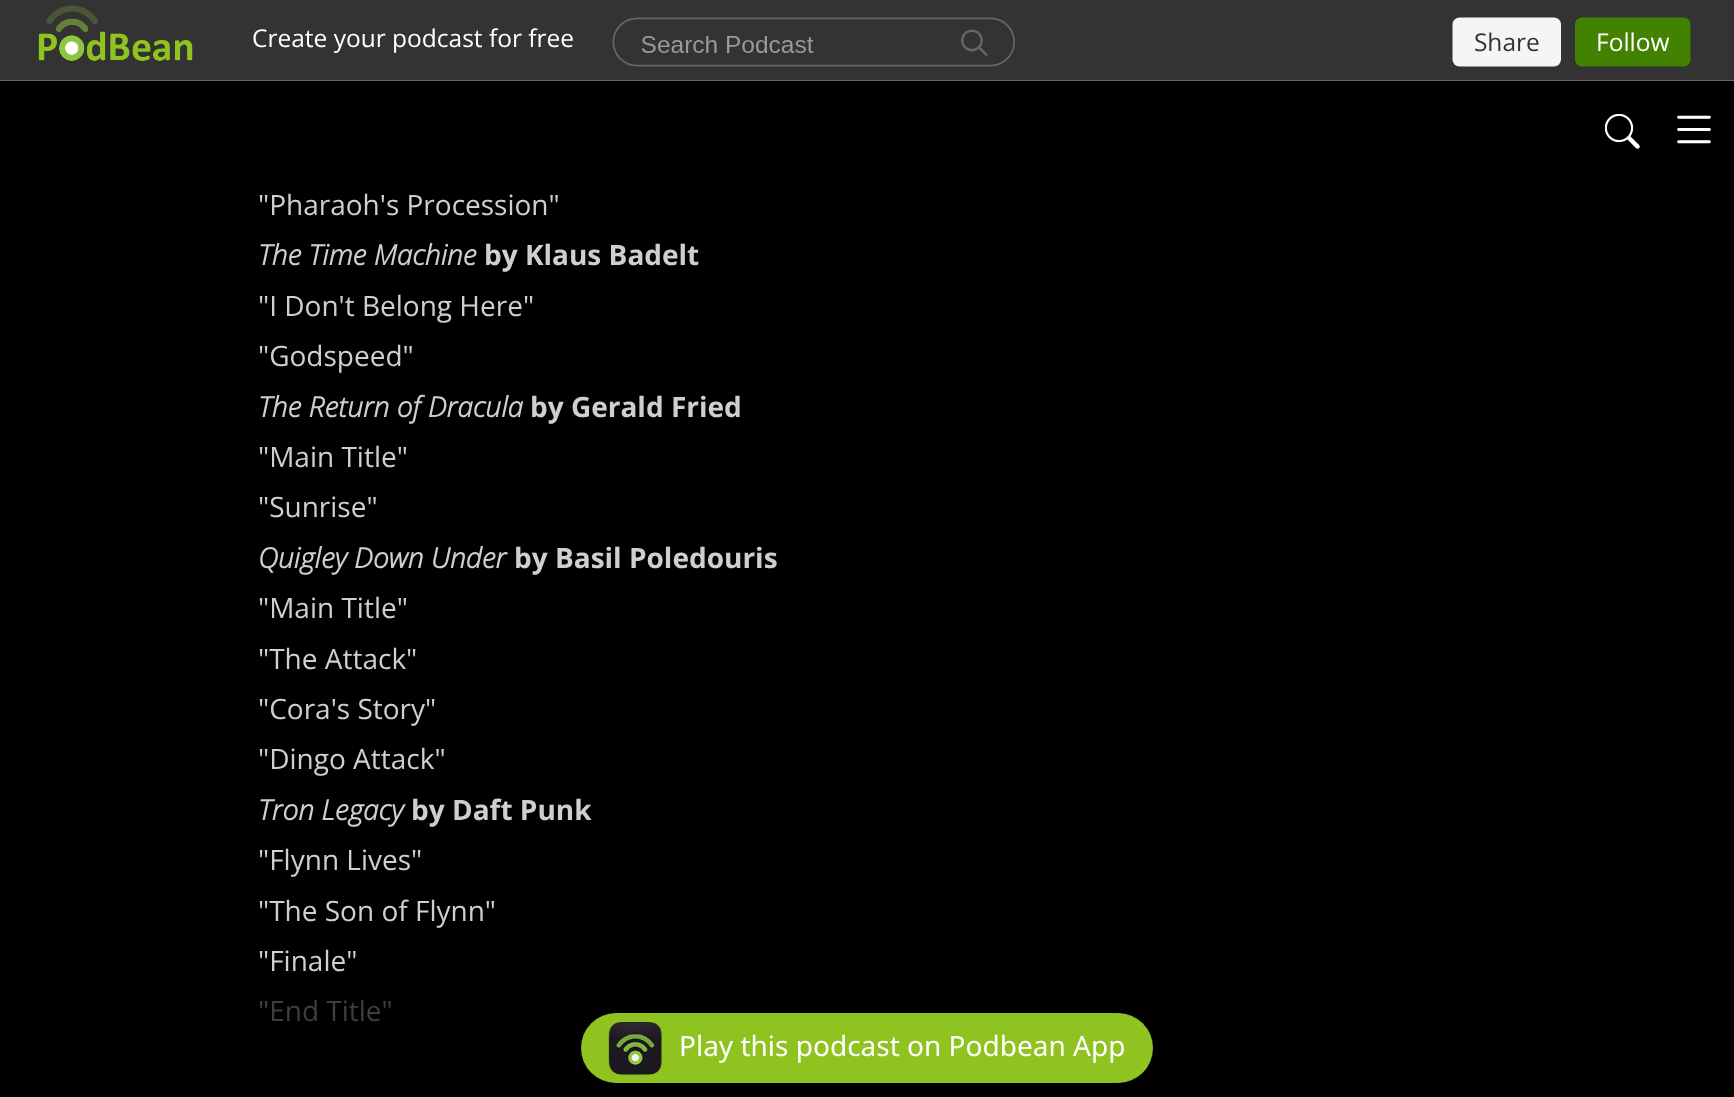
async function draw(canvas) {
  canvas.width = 1734
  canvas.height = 1097
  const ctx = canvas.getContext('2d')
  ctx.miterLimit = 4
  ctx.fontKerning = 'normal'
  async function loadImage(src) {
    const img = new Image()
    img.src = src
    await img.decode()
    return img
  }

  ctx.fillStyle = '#000'
  ctx.fillRect(0, 0, 1734, 1097)
  ctx.fillStyle = '#333'
  ctx.fillRect(0, 0, 1734, 5)
  ctx.drawImage(await loadImage('image0.png'), 0, 5, 1734, 76)
  ctx.drawImage(await loadImage('image1.png'), 1605, 114, 35, 35)
  ctx.drawImage(await loadImage('image2.png'), 1677, 115, 34, 29)
  ctx.font = '28px Open Sans'
  ctx.fillStyle = '#cfcfcf'
  ctx.fillText('"Pharaoh\'s Procession"', 258, 215)
  ctx.font = 'italic bold 28px Open Sans'
  ctx.fillText('The Time Machine', 258, 265)
  ctx.font = 'bold 28px Open Sans'
  ctx.fillText('by Klaus Badelt', 484, 265)
  ctx.font = '28px Open Sans'
  ctx.fillText('"I Don\'t Belong Here"', 258, 316)
  ctx.fillText('"Godspeed"', 258, 366)
  ctx.font = 'italic bold 28px Open Sans'
  ctx.fillText('The Return of Dracula', 258, 417)
  ctx.font = 'bold 28px Open Sans'
  ctx.fillText('by Gerald Fried', 530, 417)
  ctx.font = '28px Open Sans'
  ctx.fillText('"Main Title"', 258, 467)
  ctx.fillText('"Sunrise"', 258, 517)
  ctx.font = 'italic bold 28px Open Sans'
  ctx.fillText('Quigley Down Under', 258, 568)
  ctx.font = 'bold 28px Open Sans'
  ctx.fillText('by Basil Poledouris', 514, 568)
  ctx.font = '28px Open Sans'
  ctx.fillText('"Main Title"', 258, 618)
  ctx.fillText('"The Attack"', 258, 669)
  ctx.fillText('"Cora\'s Story"', 258, 719)
  ctx.fillText('"Dingo Attack"', 258, 769)
  ctx.font = 'italic bold 28px Open Sans'
  ctx.fillText('Tron Legacy', 258, 820)
  ctx.font = 'bold 28px Open Sans'
  ctx.fillText('by Daft Punk', 411, 820)
  ctx.font = '28px Open Sans'
  ctx.fillText('"Flynn Lives"', 258, 870)
  ctx.fillText('"The Son of Flynn"', 258, 921)
  ctx.fillText('"Finale"', 258, 971)
  ctx.fillStyle = '#3e3e3e'
  ctx.fillText('"End Title"', 258, 1021)
  ctx.fillStyle = '#8fc31f'
  ctx.beginPath()
  ctx.roundRect(581, 1013, 572, 70, 35)
  ctx.fill()
  ctx.drawImage(await loadImage('image3.png'), 608, 1022, 54, 53)
  ctx.font = '28px Noto Sans'
  ctx.fillStyle = '#fff'
  ctx.fillText('Play this podcast on Podbean App', 679, 1056)
}

draw(document.querySelector('canvas'))
